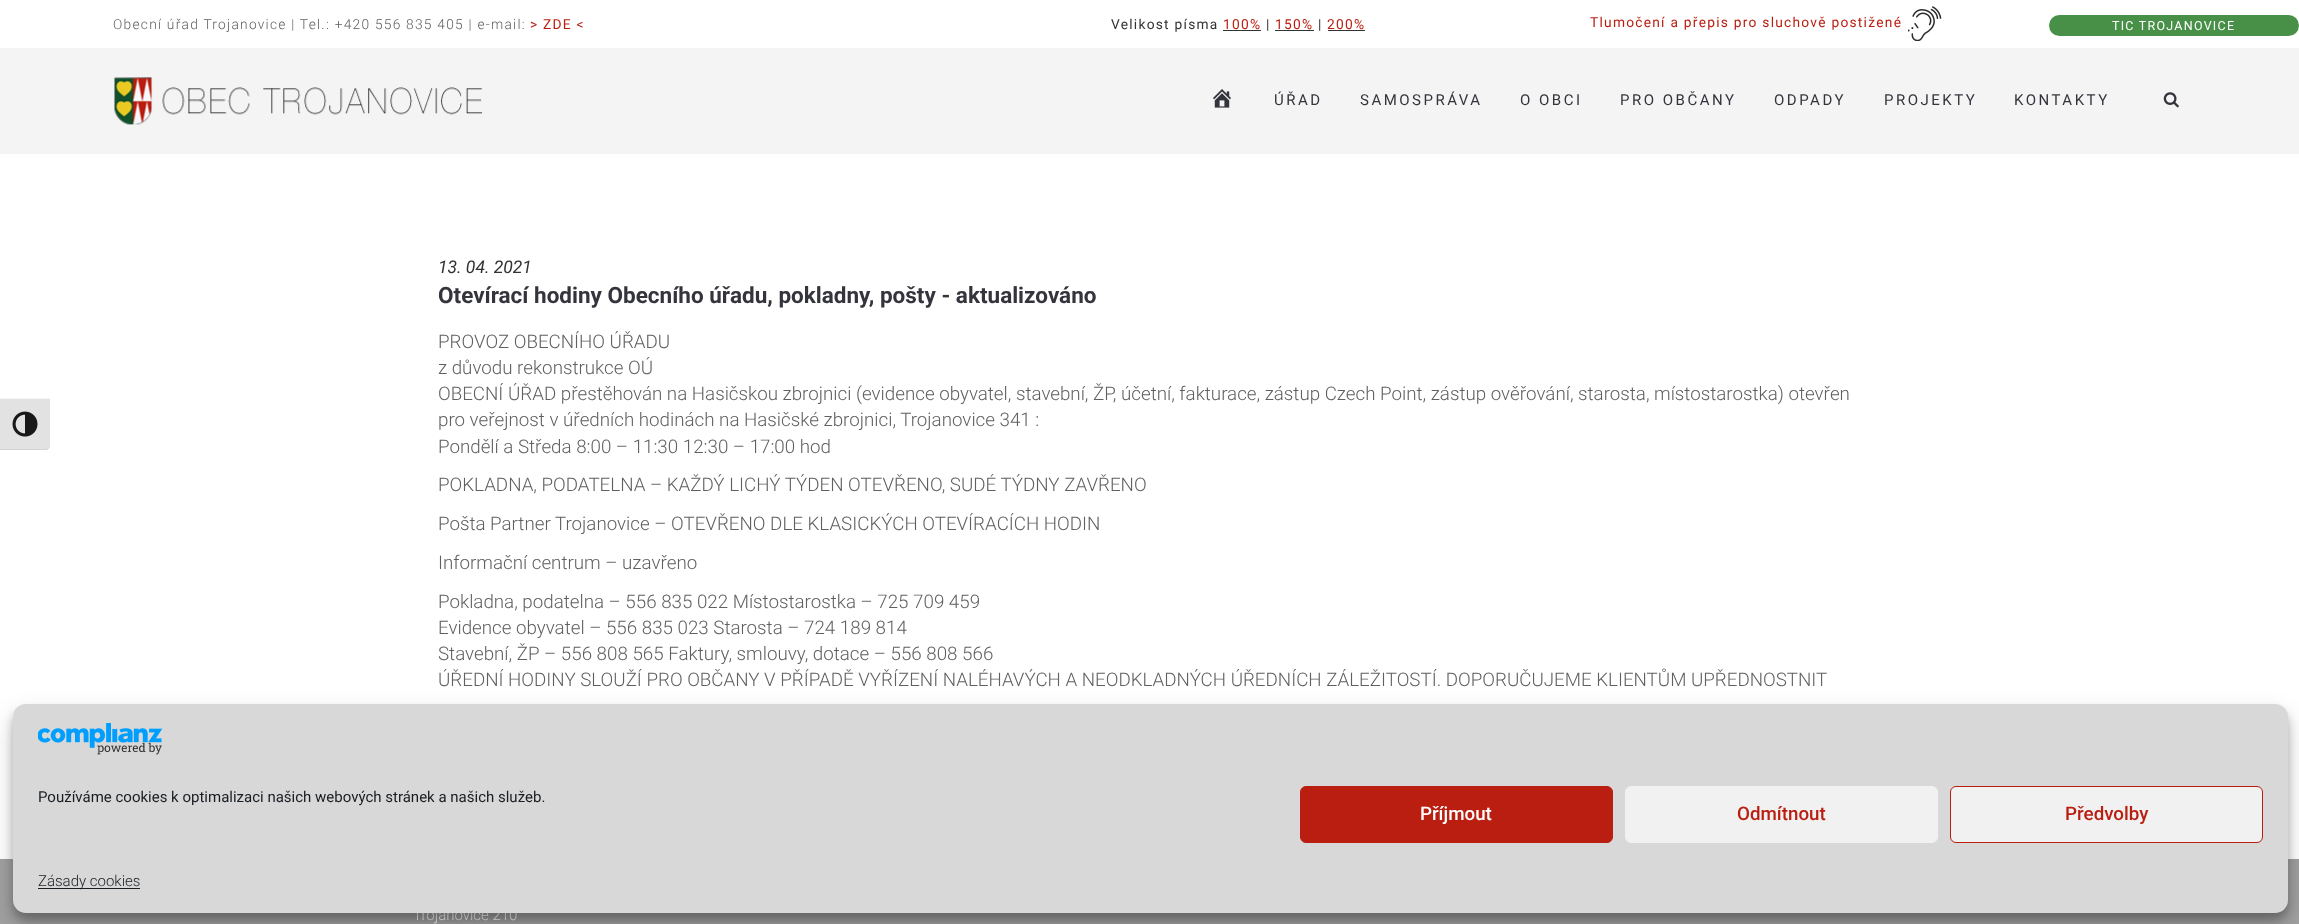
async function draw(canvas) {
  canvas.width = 2299
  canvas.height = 924
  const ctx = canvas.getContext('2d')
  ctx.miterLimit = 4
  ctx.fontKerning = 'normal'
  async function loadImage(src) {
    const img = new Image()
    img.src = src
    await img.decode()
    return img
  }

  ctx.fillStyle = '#fff'
  ctx.fillRect(0, 0, 2299, 924)
  ctx.fillStyle = '#e2e2e2'
  ctx.beginPath()
  ctx.roundRect(0, 398, 50, 52, [0, 0, 5, 0])
  ctx.fill()
  ctx.fillStyle = '#f5f5f5'
  ctx.fillRect(0, 398, 50, 1)
  ctx.fillStyle = '#d2d2d2'
  ctx.beginPath()
  ctx.moveTo(0, 449)
  ctx.lineTo(0, 450)
  ctx.lineTo(45, 450)
  ctx.bezierCurveTo(48, 450, 50, 448, 50, 445)
  ctx.bezierCurveTo(50, 447, 48, 449, 45, 449)
  ctx.closePath()
  ctx.fill()
  ctx.drawImage(await loadImage('image0.png'), 12, 411, 26, 26)
  ctx.letterSpacing = '1.25px'
  ctx.font = '300 13.75px Roboto'
  ctx.fillStyle = '#606060'
  ctx.fillText('Obecní úřad Trojanovice | Tel.: +420 556 835 405 | e-mail:', 113, 29)
  ctx.font = '13.75px Roboto'
  ctx.fillStyle = '#ba1e11'
  ctx.fillText('> ZDE <', 530, 29)
  ctx.fillStyle = '#333'
  ctx.fillText('Velikost písma', 1111, 29)
  ctx.fillStyle = '#ba1e11'
  ctx.fillText('100%', 1223, 29)
  ctx.fillStyle = '#333'
  ctx.fillRect(1223, 30, 38, 1)
  ctx.fillText('|', 1266, 29)
  ctx.fillStyle = '#ba1e11'
  ctx.fillText('150%', 1275, 29)
  ctx.fillStyle = '#333'
  ctx.fillRect(1275, 30, 39, 1)
  ctx.fillText('|', 1318, 29)
  ctx.fillStyle = '#ba1e11'
  ctx.fillText('200%', 1327, 29)
  ctx.fillStyle = '#333'
  ctx.fillRect(1328, 30, 37, 1)
  ctx.fillStyle = '#ba1e11'
  ctx.fillText('Tlumočení a přepis pro sluchově postižené', 1590, 27)
  ctx.drawImage(await loadImage('image1.png'), 1908, 6, 34, 35)
  ctx.fillStyle = '#489048'
  ctx.beginPath()
  ctx.roundRect(2049, 15, 250, 21, 10.5)
  ctx.fill()
  ctx.font = '12.5px Roboto'
  ctx.fillStyle = '#fff'
  ctx.fillText('TIC TROJANOVICE', 2112, 30)
  ctx.fillStyle = '#f4f4f4'
  ctx.fillRect(0, 48, 2299, 106)
  ctx.drawImage(await loadImage('image2.png'), 114, 77, 369, 48)
  ctx.drawImage(await loadImage('image3.png'), 2163, 92, 16, 16)
  ctx.drawImage(await loadImage('image4.png'), 1213, 89, 18, 19)
  ctx.letterSpacing = '2.5px'
  ctx.font = '15px Roboto'
  ctx.fillStyle = '#34343c'
  ctx.fillText('ÚŘAD', 1274, 105)
  ctx.fillText('SAMOSPRÁVA', 1360, 105)
  ctx.fillText('O OBCI', 1520, 105)
  ctx.fillText('PRO OBČANY', 1620, 105)
  ctx.fillText('ODPADY', 1774, 105)
  ctx.fillText('PROJEKTY', 1884, 105)
  ctx.fillText('KONTAKTY', 2014, 105)
  ctx.letterSpacing = '0px'
  ctx.font = 'italic 17.5px Roboto'
  ctx.fillStyle = '#333'
  ctx.fillText('13. 04. 2021', 438, 273)
  ctx.font = 'bold 22.5px Roboto'
  ctx.fillStyle = '#34343c'
  ctx.fillText('Otevírací hodiny Obecního úřadu, pokladny, pošty - aktualizováno', 438, 303)
  ctx.font = '300 18.75px Roboto'
  ctx.fillStyle = '#606060'
  ctx.fillText('PROVOZ OBECNÍHO ÚŘADU', 438, 348)
  ctx.fillText('z důvodu rekonstrukce OÚ', 438, 374)
  ctx.fillText('OBECNÍ ÚŘAD přestěhován na Hasičskou zbrojnici (evidence obyvatel, stavební, ŽP, účetní, fakturace, zástup Czech Point, zástup ověřování, starosta, místostarostka) otevřen', 438, 400)
  ctx.fillText('pro veřejnost v úředních hodinách na Hasičské zbrojnici, Trojanovice 341 :', 438, 426)
  ctx.fillText('Pondělí a Středa 8:00 – 11:30 12:30 – 17:00 hod', 438, 453)
  ctx.fillText('POKLADNA, PODATELNA – KAŽDÝ LICHÝ TÝDEN OTEVŘENO, SUDÉ TÝDNY ZAVŘENO', 438, 491)
  ctx.fillText('Pošta Partner Trojanovice – OTEVŘENO DLE KLASICKÝCH OTEVÍRACÍCH HODIN', 438, 530)
  ctx.fillText('Informační centrum – uzavřeno', 438, 569)
  ctx.fillText('Pokladna, podatelna – 556 835 022 Místostarostka – 725 709 459', 438, 608)
  ctx.fillText('Evidence obyvatel – 556 835 023 Starosta – 724 189 814', 438, 634)
  ctx.fillText('Stavební, ŽP – 556 808 565 Faktury, smlouvy, dotace – 556 808 566', 438, 660)
  ctx.fillText('ÚŘEDNÍ HODINY SLOUŽÍ PRO OBČANY V PŘÍPADĚ VYŘÍZENÍ NALÉHAVÝCH A NEODKLADNÝCH ÚŘEDNÍCH ZÁLEŽITOSTÍ. DOPORUČUJEME KLIENTŮM UPŘEDNOSTNIT', 438, 686)
  ctx.fillStyle = '#a1a1a1'
  ctx.fillRect(0, 859, 2299, 65)
  ctx.font = '300 15px Roboto'
  ctx.fillStyle = '#fff'
  ctx.fillText('Trojanovice 210', 413, 920)
  ctx.fillStyle = '#0000003b'
  ctx.filter = 'blur(4px)'
  ctx.beginPath()
  ctx.roundRect(13, 711, 2275, 209, 13)
  ctx.fill()
  ctx.filter = 'none'
  ctx.fillStyle = '#00000030'
  ctx.filter = 'blur(12.5px)'
  ctx.beginPath()
  ctx.roundRect(13, 716, 2275, 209, 13)
  ctx.fill()
  ctx.filter = 'none'
  ctx.fillStyle = '#d8d8d8'
  ctx.beginPath()
  ctx.roundRect(13, 704, 2275, 209, 13)
  ctx.fill()
  ctx.drawImage(await loadImage('image5.png'), 38, 723, 125, 32)
  ctx.font = '15px Roboto'
  ctx.fillStyle = '#191e23'
  ctx.fillText('Používáme cookies k optimalizaci našich webových stránek a našich služeb.', 38, 802)
  ctx.fillStyle = '#ba1e11'
  ctx.beginPath()
  ctx.roundRect(1300.5, 786.5, 312, 56, 5.5)
  ctx.fill()
  ctx.strokeStyle = '#ba1e11'
  ctx.stroke()
  ctx.font = '500 18.75px Roboto'
  ctx.fillStyle = '#fff'
  ctx.fillText('Příjmout', 1420, 820)
  ctx.fillStyle = '#f1f1f1'
  ctx.beginPath()
  ctx.roundRect(1625.5, 786.5, 312, 56, 5.5)
  ctx.fill()
  ctx.strokeStyle = '#f1f1f1'
  ctx.stroke()
  ctx.fillStyle = '#ba1e11'
  ctx.fillText('Odmítnout', 1737, 820)
  ctx.fillStyle = '#f1f1f1'
  ctx.beginPath()
  ctx.roundRect(1950.5, 786.5, 312, 56, 5.5)
  ctx.fill()
  ctx.strokeStyle = '#ba1e11'
  ctx.stroke()
  ctx.fillStyle = '#ba1e11'
  ctx.fillText('Předvolby', 2065, 820)
  ctx.fillStyle = '#191e23'
  ctx.fillRect(38, 888, 102, 1)
  ctx.font = '300 15px Roboto'
  ctx.fillText('Zásady cookies', 38, 886)
}

draw(document.querySelector('canvas'))
